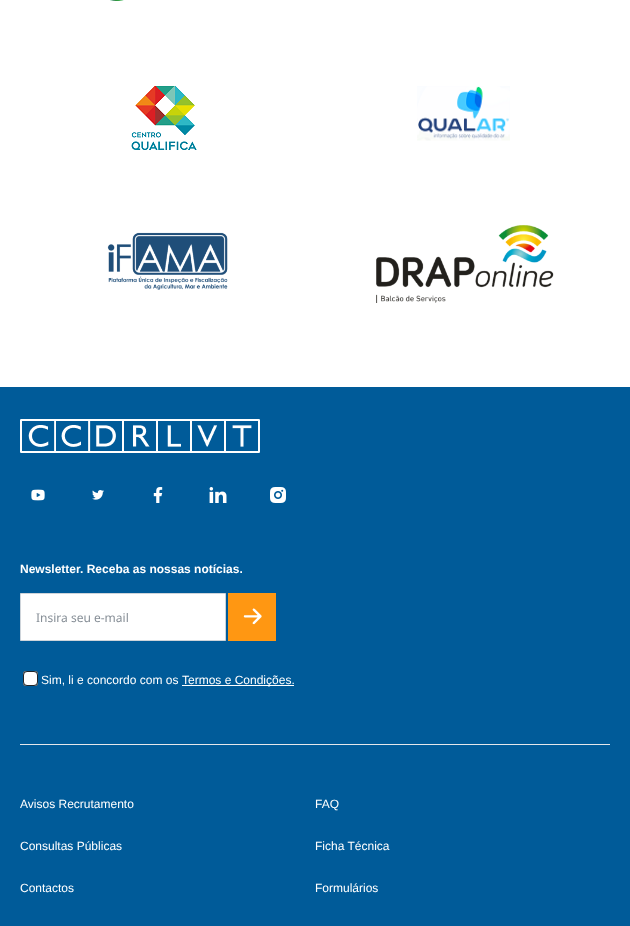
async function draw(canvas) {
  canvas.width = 630
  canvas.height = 926
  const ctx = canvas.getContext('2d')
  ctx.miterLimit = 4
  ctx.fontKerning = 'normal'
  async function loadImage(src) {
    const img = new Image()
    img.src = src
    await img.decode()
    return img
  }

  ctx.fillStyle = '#fff'
  ctx.fillRect(0, 0, 630, 926)
  ctx.drawImage(await loadImage('image0.png'), 110, 0, 14, 1)
  ctx.drawImage(await loadImage('image1.png'), 131, 86, 66, 64)
  ctx.drawImage(await loadImage('image2.png'), 417, 86, 93, 55)
  ctx.drawImage(await loadImage('image3.png'), 107, 232, 121, 58)
  ctx.drawImage(await loadImage('image4.png'), 376, 225, 178, 78)
  ctx.fillStyle = '#005b99'
  ctx.fillRect(0, 387, 630, 539)
  ctx.fillStyle = '#e5e7eb'
  ctx.fillRect(20, 744, 590, 1)
  ctx.drawImage(await loadImage('image5.png'), 20, 419, 240, 34)
  ctx.drawImage(await loadImage('image6.png'), 31, 489, 14, 12)
  ctx.drawImage(await loadImage('image7.png'), 92, 490, 12, 10)
  ctx.drawImage(await loadImage('image8.png'), 153, 487, 10, 16)
  ctx.drawImage(await loadImage('image9.png'), 209, 487, 18, 16)
  ctx.drawImage(await loadImage('image10.png'), 270, 487, 16, 16)
  ctx.font = 'bold 12px Liberation Sans'
  ctx.fillStyle = '#fff'
  ctx.fillText('Newsletter. Receba as nossas notícias.', 20, 573)
  ctx.beginPath()
  ctx.rect(20.5, 593.5, 205, 47)
  ctx.fill()
  ctx.strokeStyle = '#ced4da'
  ctx.stroke()
  ctx.font = '12px Noto Sans'
  ctx.fillStyle = '#868e96'
  ctx.fillText('Insira seu e-mail', 36, 622)
  ctx.drawImage(await loadImage('image11.png'), 228, 593, 48, 48)
  ctx.beginPath()
  ctx.roundRect(23.5, 671.5, 14, 14, 1.5)
  ctx.strokeStyle = '#767676'
  ctx.stroke()
  ctx.fillStyle = '#fff'
  ctx.beginPath()
  ctx.roundRect(23.5, 671.5, 14, 14, 3.5)
  ctx.fill()
  ctx.strokeStyle = '#212529'
  ctx.stroke()
  ctx.font = '12px Liberation Sans'
  ctx.fillText('Sim, li e concordo com os', 41, 684)
  ctx.fillRect(182, 685, 112, 1)
  ctx.fillText('Termos e Condições.', 182, 684)
  ctx.fillText('Avisos Recrutamento', 20, 808)
  ctx.fillText('Consultas Públicas', 20, 850)
  ctx.fillText('Contactos', 20, 892)
  ctx.fillText('FAQ', 315, 808)
  ctx.fillText('Ficha Técnica', 315, 850)
  ctx.fillText('Formulários', 315, 892)
}

draw(document.querySelector('canvas'))
